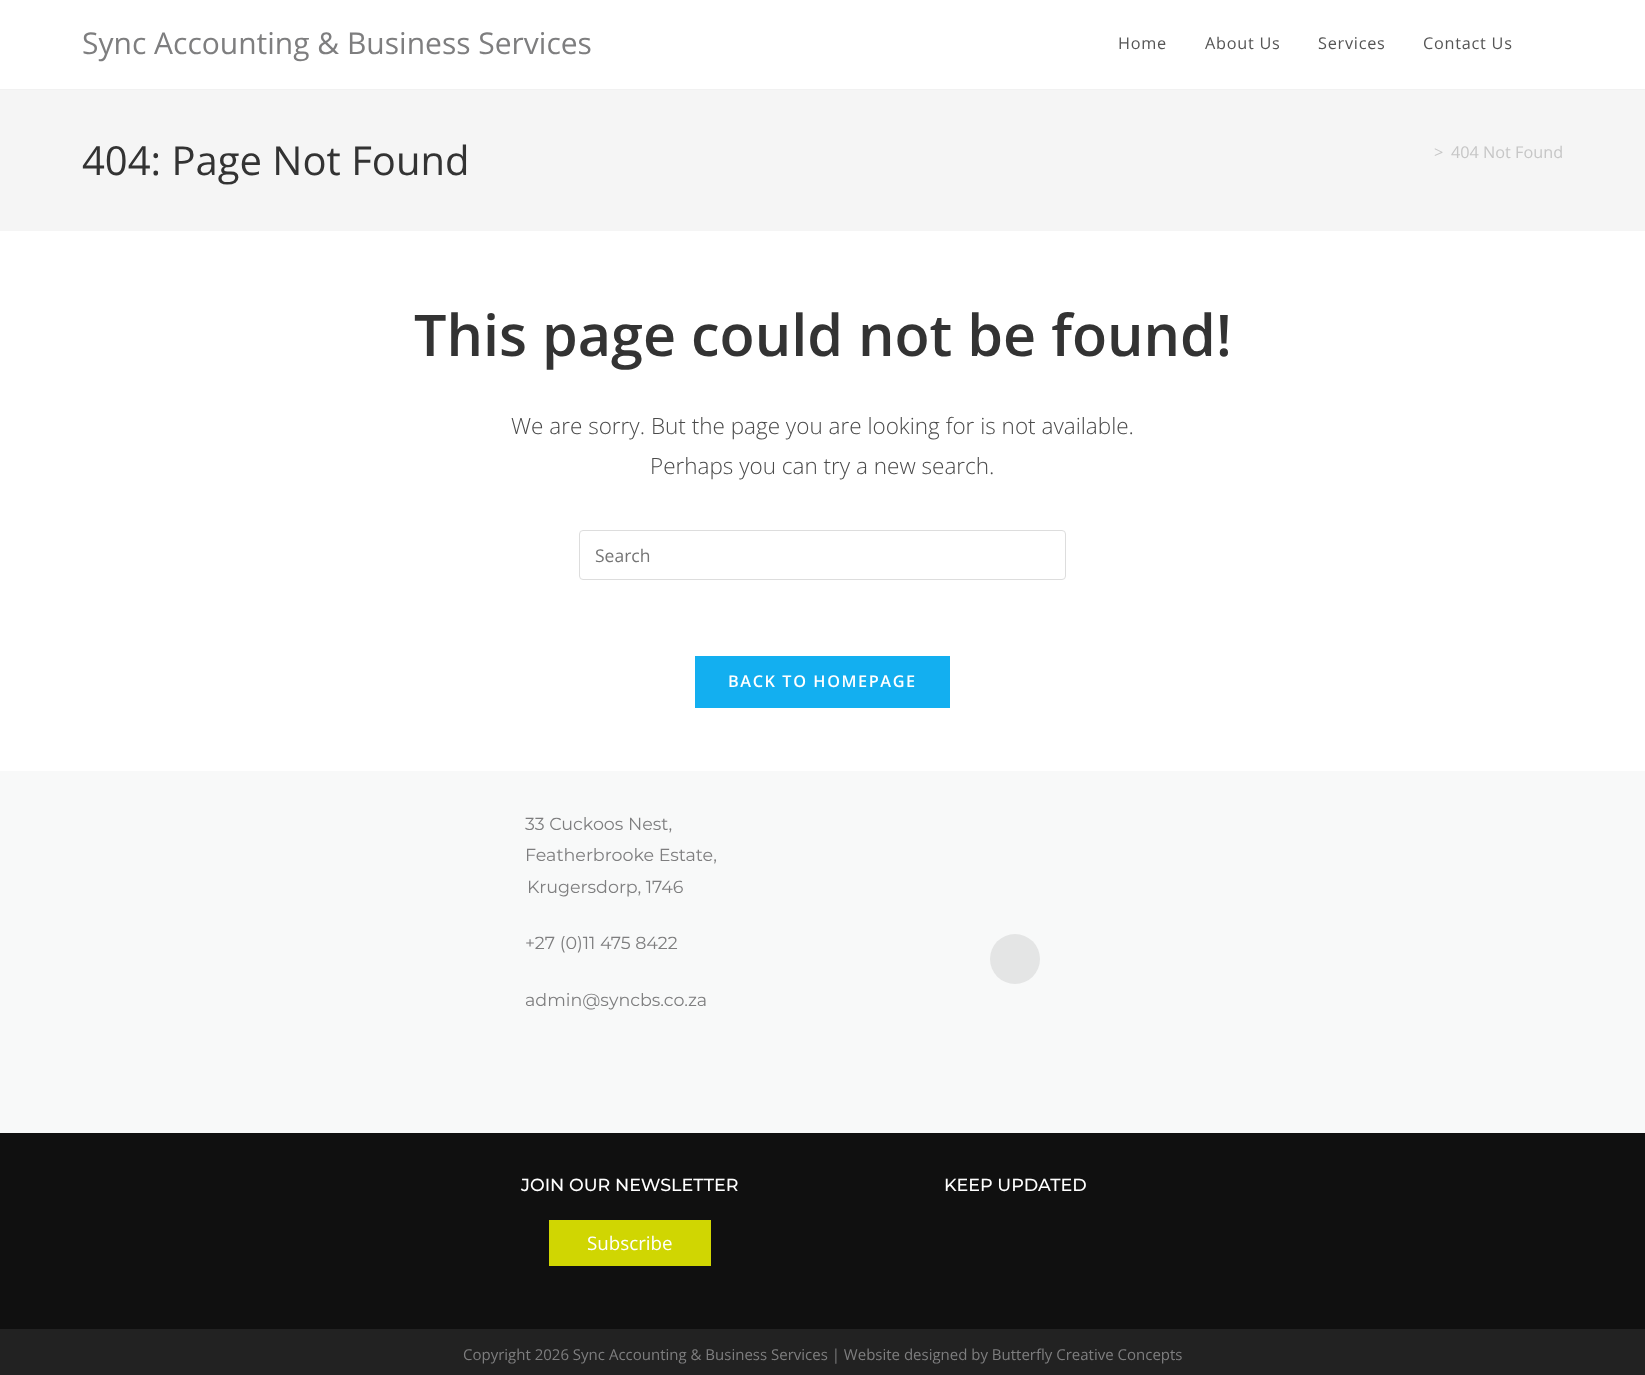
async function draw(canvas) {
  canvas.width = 1645
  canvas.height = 1375
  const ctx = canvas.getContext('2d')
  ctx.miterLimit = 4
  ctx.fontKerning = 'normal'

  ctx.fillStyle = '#fff'
  ctx.fillRect(0, 0, 1645, 1375)
  ctx.fillStyle = '#f1f1f1'
  ctx.fillRect(0, 89, 1645, 1)
  ctx.font = '30px Open Sans'
  ctx.fillStyle = '#7e7e7f'
  ctx.fillText('Sync Accounting & Business Services', 82, 54)
  ctx.letterSpacing = '0.75px'
  ctx.font = '16.25px Open Sans'
  ctx.fillStyle = '#555'
  ctx.fillText('Home', 1118, 49)
  ctx.fillText('About Us', 1205, 49)
  ctx.fillText('Services', 1318, 49)
  ctx.fillText('Contact Us', 1423, 49)
  ctx.fillStyle = '#f5f5f5'
  ctx.fillRect(0, 90, 1645, 141)
  ctx.letterSpacing = '0px'
  ctx.font = '40px Open Sans'
  ctx.fillStyle = '#333'
  ctx.fillText('404: Page Not Found', 82, 175)
  ctx.font = '16.25px Open Sans'
  ctx.fillStyle = '#c6c6c6'
  ctx.fillText('>', 1434, 158)
  ctx.fillText('404 Not Found', 1451, 158)
  ctx.font = '600 57.5px Open Sans'
  ctx.fillStyle = '#333'
  ctx.fillText('This page could not be found!', 414, 356)
  ctx.font = '300 22.5px Open Sans'
  ctx.fillStyle = '#4a4a4a'
  ctx.fillText('We are sorry. But the page you are looking for is not available.', 511, 434)
  ctx.fillText('Perhaps you can try a new search.', 650, 474)
  ctx.beginPath()
  ctx.roundRect(579.5, 530.5, 486, 49, 3.5)
  ctx.strokeStyle = '#ddd'
  ctx.stroke()
  ctx.font = '17.5px Open Sans'
  ctx.fillStyle = '#757575'
  ctx.fillText('Search', 595, 562)
  ctx.fillStyle = '#13aff0'
  ctx.fillRect(695, 656, 255, 52)
  ctx.letterSpacing = '1.6px'
  ctx.font = '600 16.25px Open Sans'
  ctx.fillStyle = '#fff'
  ctx.fillText('BACK TO HOMEPAGE', 728, 687)
  ctx.fillStyle = '#f8f9f9'
  ctx.fillRect(0, 771, 1645, 362)
  ctx.letterSpacing = '0px'
  ctx.font = '100 17.5px Montserrat'
  ctx.fillStyle = '#7e7e7f'
  ctx.fillText('33 Cuckoos Nest,', 525, 830)
  ctx.fillText('Featherbrooke Estate,', 525, 861)
  ctx.fillText('Krugersdorp, 1746', 527, 893)
  ctx.fillText('+27 (0)11 475 8422', 525, 949)
  ctx.fillText('admin@syncbs.co.za', 525, 1006)
  ctx.fillStyle = '#e4e5e5'
  ctx.beginPath()
  ctx.arc(1015, 959, 25, 0, 2 * Math.PI)
  ctx.fill()
  ctx.fillStyle = '#101010'
  ctx.fillRect(0, 1133, 1645, 196)
  ctx.font = '500 17.5px Montserrat'
  ctx.fillStyle = '#fff'
  ctx.fillText('JOIN OUR NEWSLETTER', 521, 1191)
  ctx.fillStyle = '#d0d602'
  ctx.fillRect(549, 1220, 162, 46)
  ctx.font = '18.75px Open Sans'
  ctx.fillStyle = '#fff'
  ctx.fillText('Subscribe', 587, 1250)
  ctx.font = '500 17.5px Montserrat'
  ctx.fillText('KEEP UPDATED', 944, 1191)
  ctx.fillStyle = '#222'
  ctx.fillRect(0, 1329, 1645, 46)
  ctx.font = '15px Open Sans'
  ctx.fillStyle = '#7e7e7f'
  ctx.fillText('Copyright 2026 Sync Accounting & Business Services | Website designed by Butterfly Creative Concepts', 463, 1360)
}

draw(document.querySelector('canvas'))
